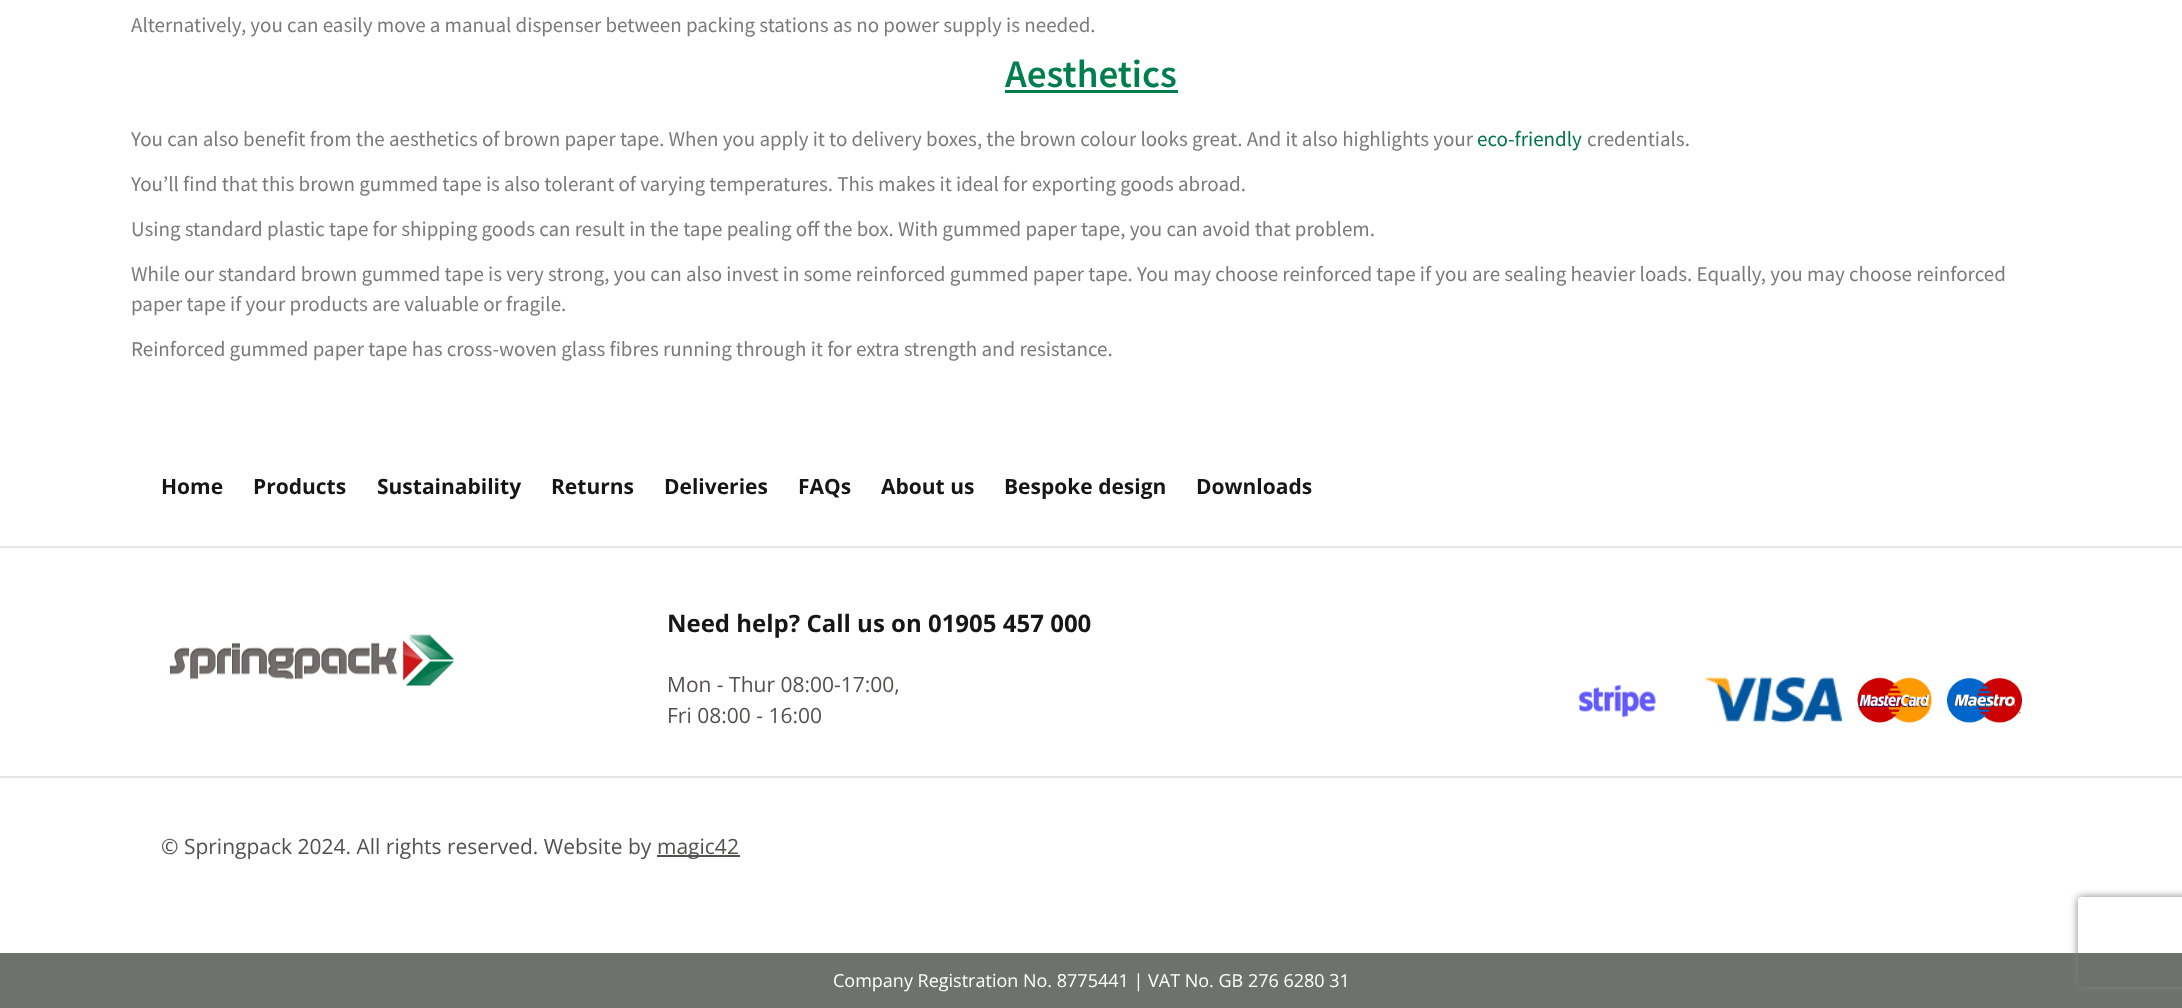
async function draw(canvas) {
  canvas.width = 2182
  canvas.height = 1008
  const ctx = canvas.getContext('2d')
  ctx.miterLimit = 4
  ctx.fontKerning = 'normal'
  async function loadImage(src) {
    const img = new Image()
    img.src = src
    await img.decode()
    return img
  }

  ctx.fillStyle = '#fff'
  ctx.fillRect(0, 0, 2182, 1008)
  ctx.font = '21px Source Sans Pro'
  ctx.fillStyle = '#7a7a7a'
  ctx.fillText('Alternatively, you can easily move a manual dispenser between packing stations as no power supply is needed.', 131, 32)
  ctx.font = '600 39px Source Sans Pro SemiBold'
  ctx.fillStyle = '#007e4e'
  ctx.fillText('Aesthetics', 1005, 87)
  ctx.fillRect(1005, 90, 173, 3)
  ctx.font = '21px Source Sans Pro'
  ctx.fillStyle = '#7a7a7a'
  ctx.fillText('You can also benefit from the aesthetics of brown paper tape. When you apply it to delivery boxes, the brown colour looks great. And it also highlights your', 131, 146)
  ctx.fillStyle = '#01734a'
  ctx.fillText('eco-friendly', 1477, 146)
  ctx.fillStyle = '#7a7a7a'
  ctx.fillText('credentials.', 1587, 146)
  ctx.fillText('You’ll find that this brown gummed tape is also tolerant of varying temperatures. This makes it ideal for exporting goods abroad.', 131, 191)
  ctx.fillText('Using standard plastic tape for shipping goods can result in the tape pealing off the box. With gummed paper tape, you can avoid that problem.', 131, 236)
  ctx.fillText('While our standard brown gummed tape is very strong, you can also invest in some reinforced gummed paper tape. You may choose reinforced tape if you are sealing heavier loads. Equally, you may choose reinforced', 131, 281)
  ctx.fillText('paper tape if your products are valuable or fragile.', 131, 311)
  ctx.fillText('Reinforced gummed paper tape has cross-woven glass fibres running through it for extra strength and resistance.', 131, 356)
  ctx.fillStyle = '#e6e6e6'
  ctx.fillRect(0, 546, 2182, 2)
  ctx.font = 'bold 21px Open Sans'
  ctx.fillStyle = '#161616'
  ctx.fillText('Home', 161, 494)
  ctx.fillText('Products', 253, 494)
  ctx.fillText('Sustainability', 377, 494)
  ctx.fillText('Returns', 551, 494)
  ctx.fillText('Deliveries', 664, 494)
  ctx.fillText('FAQs', 798, 494)
  ctx.fillText('About us', 881, 494)
  ctx.fillText('Bespoke design', 1004, 494)
  ctx.fillText('Downloads', 1196, 494)
  ctx.fillStyle = '#e6e6e6'
  ctx.fillRect(0, 776, 2182, 2)
  ctx.drawImage(await loadImage('image0.png'), 170, 634, 284, 52)
  ctx.font = 'bold 24px Open Sans'
  ctx.fillStyle = '#161616'
  ctx.fillText('Need help? Call us on 01905 457 000', 667, 632)
  ctx.font = '21px Open Sans'
  ctx.fillStyle = '#535050'
  ctx.fillText('Mon - Thur 08:00-17:00,', 667, 692)
  ctx.fillText('Fri 08:00 - 16:00', 667, 723)
  ctx.drawImage(await loadImage('image1.png'), 1578, 684, 78, 34)
  ctx.drawImage(await loadImage('image2.png'), 1705, 677, 137, 46)
  ctx.drawImage(await loadImage('image3.png'), 1857, 677, 75, 46)
  ctx.drawImage(await loadImage('image4.png'), 1947, 678, 75, 45)
  ctx.fillText('© Springpack 2024. All rights reserved. Website by', 161, 854)
  ctx.fillRect(657, 855, 83, 2)
  ctx.fillText('magic42', 657, 854)
  ctx.fillStyle = '#6e716e'
  ctx.fillRect(0, 953, 2182, 55)
  ctx.font = '18px Open Sans'
  ctx.fillStyle = '#fff'
  ctx.fillText('Company Registration No. 8775441 | VAT No. GB 276 6280 31', 833, 987)
  ctx.save()
  ctx.beginPath()
  ctx.moveTo(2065, 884)
  ctx.lineTo(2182, 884)
  ctx.lineTo(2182, 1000)
  ctx.lineTo(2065, 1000)
  ctx.closePath()
  ctx.moveTo(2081, 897)
  ctx.lineTo(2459, 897)
  ctx.bezierCurveTo(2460.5, 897, 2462, 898.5, 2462, 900)
  ctx.lineTo(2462, 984)
  ctx.bezierCurveTo(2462, 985.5, 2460.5, 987, 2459, 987)
  ctx.lineTo(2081, 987)
  ctx.bezierCurveTo(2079.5, 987, 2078, 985.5, 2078, 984)
  ctx.lineTo(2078, 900)
  ctx.bezierCurveTo(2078, 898.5, 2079.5, 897, 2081, 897)
  ctx.closePath()
  ctx.clip('evenodd')
  ctx.fillStyle = '#808080'
  ctx.filter = 'blur(4px)'
  ctx.beginPath()
  ctx.roundRect(2078, 897, 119, 90, 3)
  ctx.fill()
  ctx.filter = 'none'
  ctx.restore()
}

draw(document.querySelector('canvas'))
